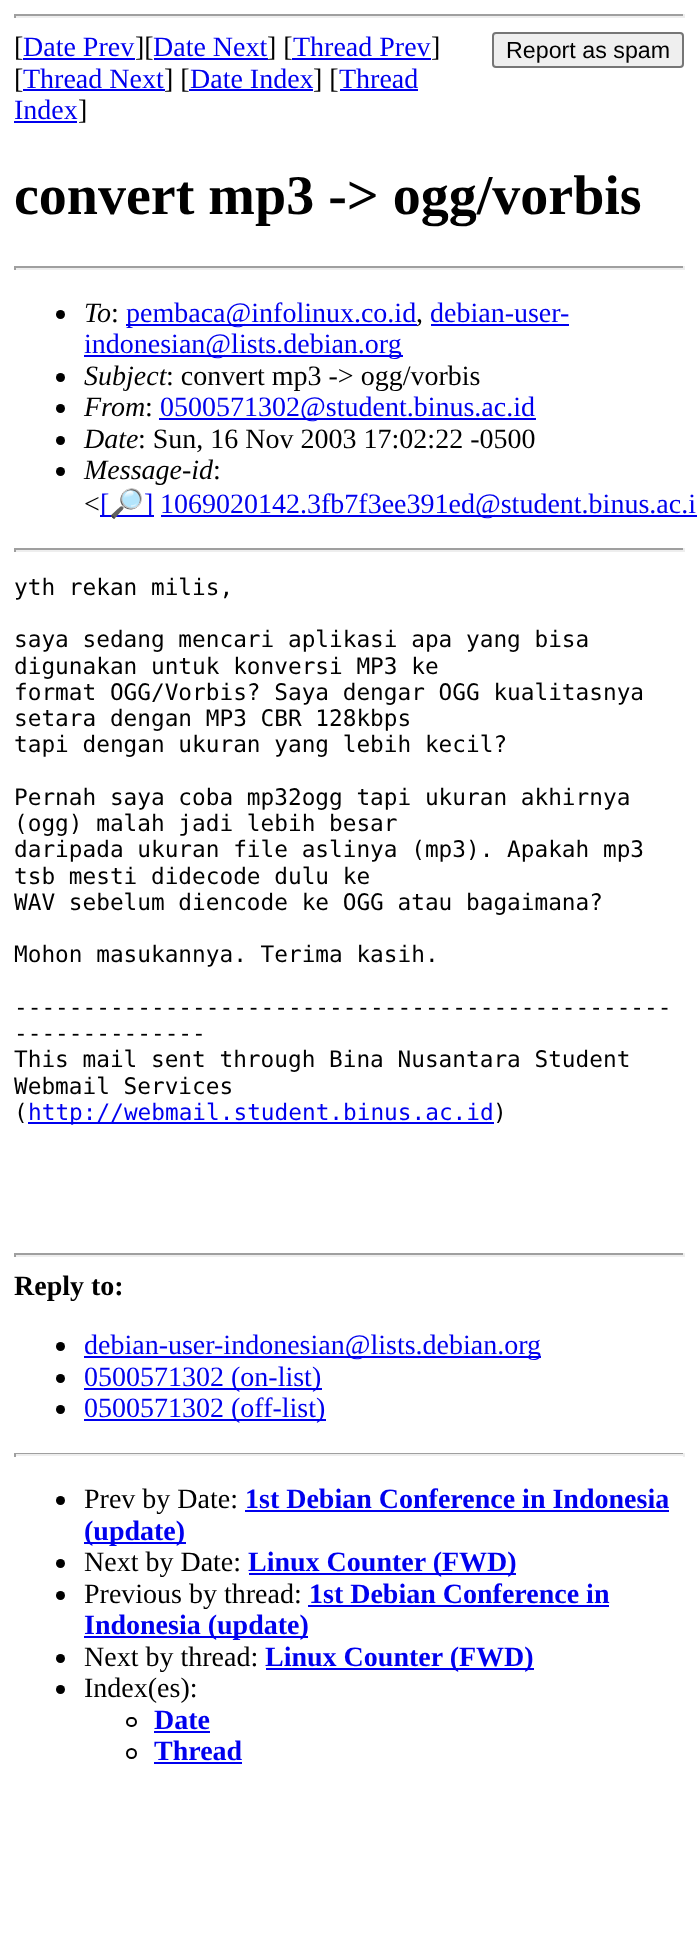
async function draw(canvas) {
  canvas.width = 697
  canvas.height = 1958
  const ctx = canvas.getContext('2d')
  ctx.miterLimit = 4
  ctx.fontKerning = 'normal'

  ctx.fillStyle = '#fff'
  ctx.fillRect(0, 0, 697, 1958)
  ctx.fillStyle = '#9f9f9f'
  ctx.fillRect(14, 14, 670, 2)
  ctx.fillStyle = '#eee'
  ctx.fillRect(683, 14, 2, 4)
  ctx.fillRect(14, 16, 670, 2)
  ctx.fillStyle = '#9f9f9f'
  ctx.fillRect(14, 14, 2, 4)
  ctx.font = '28px Liberation Serif'
  ctx.fillStyle = '#000'
  ctx.fillText('[', 14, 56)
  ctx.fillStyle = '#00e'
  ctx.fillText('Date Prev', 23, 56)
  ctx.fillRect(23, 58, 112, 2)
  ctx.fillStyle = '#000'
  ctx.fillText('][', 135, 56)
  ctx.fillStyle = '#00e'
  ctx.fillText('Date Next', 153, 56)
  ctx.fillRect(154, 58, 114, 2)
  ctx.fillStyle = '#000'
  ctx.fillText('] [', 267, 56)
  ctx.fillStyle = '#00e'
  ctx.fillText('Thread Prev', 293, 56)
  ctx.fillRect(292, 58, 139, 2)
  ctx.fillStyle = '#000'
  ctx.fillText(']', 431, 56)
  ctx.fillStyle = '#efefef'
  ctx.beginPath()
  ctx.roundRect(493, 33, 190, 34, 3)
  ctx.fill()
  ctx.strokeStyle = '#767676'
  ctx.lineWidth = 2
  ctx.stroke()
  ctx.font = '23.25px Liberation Sans'
  ctx.fillStyle = '#000'
  ctx.fillText('Report as spam', 506, 58)
  ctx.font = '28px Liberation Serif'
  ctx.fillText('[', 14, 88)
  ctx.fillStyle = '#00e'
  ctx.fillText('Thread Next', 23, 88)
  ctx.fillRect(23, 89, 142, 2)
  ctx.fillStyle = '#000'
  ctx.fillText('] [', 164, 88)
  ctx.fillStyle = '#00e'
  ctx.fillText('Date Index', 190, 88)
  ctx.fillRect(189, 89, 124, 2)
  ctx.fillStyle = '#000'
  ctx.fillText('] [', 313, 88)
  ctx.fillStyle = '#00e'
  ctx.fillText('Thread', 339, 88)
  ctx.fillRect(340, 89, 78, 2)
  ctx.fillText('Index', 14, 119)
  ctx.fillRect(14, 121, 63, 2)
  ctx.fillStyle = '#000'
  ctx.fillText(']', 78, 119)
  ctx.font = 'bold 56px Liberation Serif'
  ctx.fillText('convert mp3 -> ogg/vorbis', 14, 214)
  ctx.fillStyle = '#9f9f9f'
  ctx.fillRect(14, 266, 670, 2)
  ctx.fillStyle = '#eee'
  ctx.fillRect(683, 266, 2, 4)
  ctx.fillRect(14, 268, 670, 2)
  ctx.fillStyle = '#9f9f9f'
  ctx.fillRect(14, 266, 2, 4)
  ctx.fillStyle = '#000'
  ctx.beginPath()
  ctx.arc(60.5, 314.5, 4.5, 0, 2 * Math.PI)
  ctx.fill()
  ctx.font = 'italic 28px Liberation Serif'
  ctx.fillText('To', 84, 322)
  ctx.font = '28px Liberation Serif'
  ctx.fillText(':', 111, 322)
  ctx.fillStyle = '#00e'
  ctx.fillRect(126, 324, 291, 2)
  ctx.fillText('pembaca@infolinux.co.id', 126, 322)
  ctx.fillText('debian-user-', 430, 322)
  ctx.fillRect(431, 324, 138, 2)
  ctx.fillStyle = '#000'
  ctx.fillText(',', 416, 322)
  ctx.fillStyle = '#00e'
  ctx.fillRect(84, 355, 319, 2)
  ctx.fillText('indonesian@lists.debian.org', 84, 353)
  ctx.fillStyle = '#000'
  ctx.beginPath()
  ctx.arc(60.5, 377.5, 4.5, 0, 2 * Math.PI)
  ctx.fill()
  ctx.font = 'italic 28px Liberation Serif'
  ctx.fillText('Subject', 84, 385)
  ctx.font = '28px Liberation Serif'
  ctx.fillText(': convert mp3 -> ogg/vorbis', 166, 385)
  ctx.beginPath()
  ctx.arc(60.5, 408.5, 4.5, 0, 2 * Math.PI)
  ctx.fill()
  ctx.font = 'italic 28px Liberation Serif'
  ctx.fillText('From', 84, 416)
  ctx.font = '28px Liberation Serif'
  ctx.fillText(':', 145, 416)
  ctx.fillStyle = '#00e'
  ctx.fillRect(159, 418, 377, 2)
  ctx.fillText('0500571302@student.binus.ac.id', 160, 416)
  ctx.fillStyle = '#000'
  ctx.beginPath()
  ctx.arc(60.5, 440.5, 4.5, 0, 2 * Math.PI)
  ctx.fill()
  ctx.font = 'italic 28px Liberation Serif'
  ctx.fillText('Date', 84, 448)
  ctx.font = '28px Liberation Serif'
  ctx.fillText(': Sun, 16 Nov 2003 17:02:22 -0500', 138, 448)
  ctx.beginPath()
  ctx.arc(60.5, 471.5, 4.5, 0, 2 * Math.PI)
  ctx.fill()
  ctx.font = 'italic 28px Liberation Serif'
  ctx.fillText('Message-id', 84, 479)
  ctx.font = '28px Liberation Serif'
  ctx.fillText(':', 213, 479)
  ctx.fillText('<', 84, 513)
  ctx.fillStyle = '#00e'
  ctx.fillRect(100, 515, 54, 2)
  ctx.fillText('[', 100, 513)
  ctx.font = '28px Noto Color Emoji'
  ctx.fillText('🔎', 109, 513)
  ctx.font = '28px Liberation Serif'
  ctx.fillText(']', 144, 513)
  ctx.fillRect(161, 515, 536, 2)
  ctx.fillText('1069020142.3fb7f3ee391ed@student.binus.ac.i', 160, 513)
  ctx.fillStyle = '#9f9f9f'
  ctx.fillRect(14, 548, 670, 2)
  ctx.fillStyle = '#eee'
  ctx.fillRect(683, 548, 2, 4)
  ctx.fillRect(14, 550, 670, 2)
  ctx.fillStyle = '#9f9f9f'
  ctx.fillRect(14, 548, 2, 4)
  ctx.font = '22.75px DejaVu Sans Mono'
  ctx.fillStyle = '#000'
  ctx.fillText('yth rekan milis,', 14, 595)
  ctx.fillText('saya sedang mencari aplikasi apa yang bisa', 14, 647)
  ctx.fillText('digunakan untuk konversi MP3 ke', 14, 674)
  ctx.fillText('format OGG/Vorbis? Saya dengar OGG kualitasnya', 14, 700)
  ctx.fillText('setara dengan MP3 CBR 128kbps', 14, 726)
  ctx.fillText('tapi dengan ukuran yang lebih kecil?', 14, 752)
  ctx.fillText('Pernah saya coba mp32ogg tapi ukuran akhirnya', 14, 805)
  ctx.fillText('(ogg) malah jadi lebih besar', 14, 831)
  ctx.fillText('daripada ukuran file aslinya (mp3). Apakah mp3', 14, 857)
  ctx.fillText('tsb mesti didecode dulu ke', 14, 884)
  ctx.fillText('WAV sebelum diencode ke OGG atau bagaimana?', 14, 910)
  ctx.fillText('Mohon masukannya. Terima kasih.', 14, 962)
  ctx.fillText('------------------------------------------------', 14, 1015)
  ctx.fillText('--------------', 14, 1041)
  ctx.fillText('This mail sent through Bina Nusantara Student', 14, 1067)
  ctx.fillText('Webmail Services', 14, 1094)
  ctx.fillText('(', 14, 1120)
  ctx.fillStyle = '#00e'
  ctx.fillRect(28, 1122, 466, 2)
  ctx.fillText('http://webmail.student.binus.ac.id', 28, 1120)
  ctx.fillStyle = '#000'
  ctx.fillText(')', 493, 1120)
  ctx.fillStyle = '#9f9f9f'
  ctx.fillRect(14, 1253, 670, 2)
  ctx.fillStyle = '#eee'
  ctx.fillRect(683, 1253, 2, 4)
  ctx.fillRect(14, 1255, 670, 2)
  ctx.fillStyle = '#9f9f9f'
  ctx.fillRect(14, 1253, 2, 4)
  ctx.font = 'bold 28px Liberation Serif'
  ctx.fillStyle = '#000'
  ctx.fillText('Reply to:', 14, 1295)
  ctx.beginPath()
  ctx.arc(60.5, 1346.5, 4.5, 0, 2 * Math.PI)
  ctx.fill()
  ctx.fillStyle = '#00e'
  ctx.fillRect(84, 1356, 457, 2)
  ctx.font = '28px Liberation Serif'
  ctx.fillText('debian-user-indonesian@lists.debian.org', 84, 1354)
  ctx.fillStyle = '#000'
  ctx.beginPath()
  ctx.arc(60.5, 1378.5, 4.5, 0, 2 * Math.PI)
  ctx.fill()
  ctx.fillStyle = '#00e'
  ctx.fillRect(84, 1388, 238, 2)
  ctx.fillText('0500571302 (on-list)', 84, 1386)
  ctx.fillStyle = '#000'
  ctx.beginPath()
  ctx.arc(60.5, 1409.5, 4.5, 0, 2 * Math.PI)
  ctx.fill()
  ctx.fillStyle = '#00e'
  ctx.fillRect(84, 1419, 242, 2)
  ctx.fillText('0500571302 (off-list)', 84, 1417)
  ctx.fillStyle = '#9f9f9f'
  ctx.fillRect(14, 1453, 670, 1)
  ctx.fillStyle = '#eee'
  ctx.fillRect(683, 1453, 2, 4)
  ctx.fillRect(14, 1454, 670, 2)
  ctx.fillStyle = '#9f9f9f'
  ctx.fillRect(14, 1453, 2, 4)
  ctx.fillStyle = '#000'
  ctx.beginPath()
  ctx.arc(60.5, 1500.5, 4.5, 0, 2 * Math.PI)
  ctx.fill()
  ctx.fillText('Prev by Date:', 84, 1508)
  ctx.font = 'bold 28px Liberation Serif'
  ctx.fillStyle = '#00e'
  ctx.fillText('1st Debian Conference in Indonesia', 245, 1508)
  ctx.fillRect(245, 1510, 424, 2)
  ctx.fillRect(84, 1542, 102, 2)
  ctx.fillText('(update)', 84, 1540)
  ctx.fillStyle = '#000'
  ctx.beginPath()
  ctx.arc(60.5, 1563.5, 4.5, 0, 2 * Math.PI)
  ctx.fill()
  ctx.font = '28px Liberation Serif'
  ctx.fillText('Next by Date:', 84, 1571)
  ctx.fillStyle = '#00e'
  ctx.fillRect(249, 1573, 267, 2)
  ctx.font = 'bold 28px Liberation Serif'
  ctx.fillText('Linux Counter (FWD)', 248, 1571)
  ctx.fillStyle = '#000'
  ctx.beginPath()
  ctx.arc(60.5, 1595.5, 4.5, 0, 2 * Math.PI)
  ctx.fill()
  ctx.font = '28px Liberation Serif'
  ctx.fillText('Previous by thread:', 84, 1603)
  ctx.font = 'bold 28px Liberation Serif'
  ctx.fillStyle = '#00e'
  ctx.fillText('1st Debian Conference in', 309, 1603)
  ctx.fillRect(308, 1605, 301, 2)
  ctx.fillRect(84, 1636, 224, 2)
  ctx.fillText('Indonesia (update)', 84, 1634)
  ctx.fillStyle = '#000'
  ctx.beginPath()
  ctx.arc(60.5, 1658.5, 4.5, 0, 2 * Math.PI)
  ctx.fill()
  ctx.font = '28px Liberation Serif'
  ctx.fillText('Next by thread:', 84, 1666)
  ctx.fillStyle = '#00e'
  ctx.fillRect(266, 1668, 268, 2)
  ctx.font = 'bold 28px Liberation Serif'
  ctx.fillText('Linux Counter (FWD)', 265, 1666)
  ctx.fillStyle = '#000'
  ctx.beginPath()
  ctx.arc(60.5, 1689.5, 4.5, 0, 2 * Math.PI)
  ctx.fill()
  ctx.font = '28px Liberation Serif'
  ctx.fillText('Index(es):', 84, 1697)
  ctx.beginPath()
  ctx.roundRect(127, 1718, 9, 8, 4)
  ctx.strokeStyle = '#000'
  ctx.stroke()
  ctx.font = 'bold 28px Liberation Serif'
  ctx.fillStyle = '#00e'
  ctx.fillText('Date', 154, 1729)
  ctx.fillRect(154, 1731, 56, 2)
  ctx.beginPath()
  ctx.arc(131.5, 1753.5, 4.5, 0, 2 * Math.PI)
  ctx.stroke()
  ctx.fillText('Thread', 154, 1760)
  ctx.fillRect(154, 1762, 88, 2)
}

draw(document.querySelector('canvas'))
